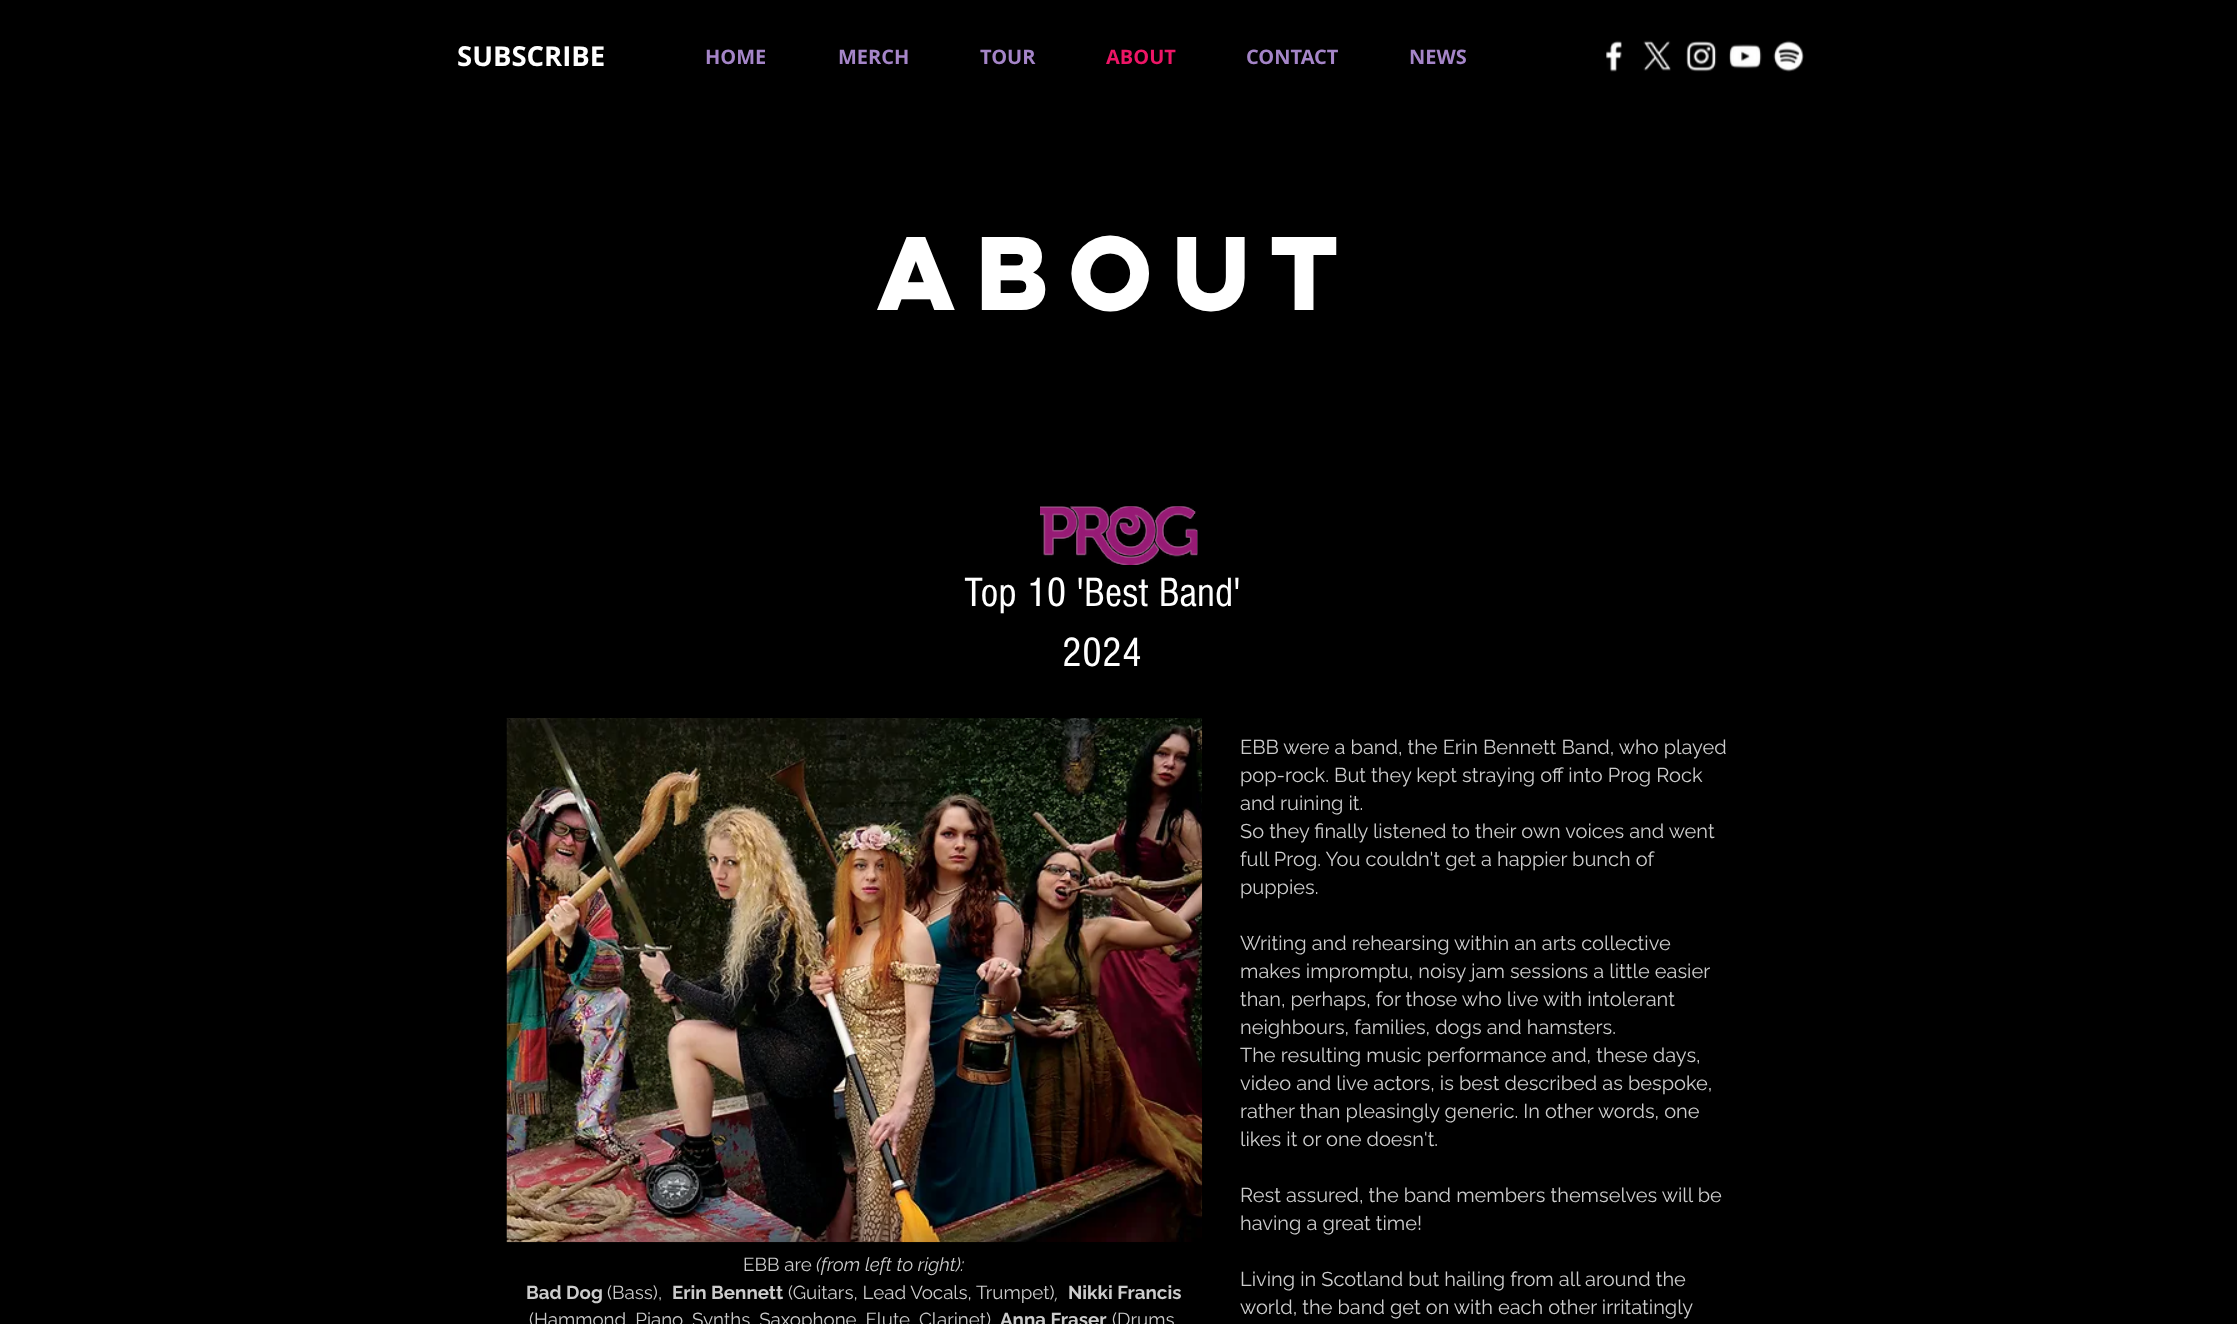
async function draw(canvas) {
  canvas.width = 2237
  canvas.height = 1324
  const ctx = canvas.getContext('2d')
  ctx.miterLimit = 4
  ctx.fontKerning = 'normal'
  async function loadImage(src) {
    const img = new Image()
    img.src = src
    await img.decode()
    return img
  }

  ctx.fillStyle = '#000'
  ctx.fillRect(0, 0, 2237, 1324)
  ctx.font = 'bold 27.5px Open Sans'
  ctx.fillStyle = '#fff'
  ctx.fillText('SUBSCRIBE', 457, 66)
  ctx.font = 'bold 20px Open Sans'
  ctx.fillStyle = '#a585c8'
  ctx.fillText('HOME', 705, 64)
  ctx.fillText('MERCH', 838, 64)
  ctx.fillText('TOUR', 980, 64)
  ctx.fillStyle = '#ed1566'
  ctx.fillText('ABOUT', 1106, 64)
  ctx.fillStyle = '#a585c8'
  ctx.fillText('CONTACT', 1246, 64)
  ctx.fillText('NEWS', 1409, 64)
  ctx.drawImage(await loadImage('image0.png'), 1606, 40, 16, 32)
  ctx.drawImage(await loadImage('image1.png'), 1643, 40, 28, 31)
  ctx.drawImage(await loadImage('image2.png'), 1686, 41, 31, 31)
  ctx.drawImage(await loadImage('image3.png'), 1729, 44, 33, 25)
  ctx.drawImage(await loadImage('image4.png'), 1773, 40, 31, 32)
  ctx.font = 'bold 93.75px "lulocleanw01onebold"'
  ctx.fillStyle = '#fff'
  ctx.fillText('about', 877, 310)
  ctx.drawImage(await loadImage('image5.png'), 1040, 506, 158, 59)
  ctx.font = '42.5px "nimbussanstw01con"'
  ctx.fillText('Top 10 \'Best Band\'', 964, 606)
  ctx.fillText('2024', 1062, 666)
  ctx.drawImage(await loadImage('image6.png'), 506, 718, 697, 525)
  ctx.font = '20px Raleway'
  ctx.fillStyle = '#ccc'
  ctx.fillText('EBB were a band, the Erin Bennett Band, who played', 1240, 754)
  ctx.fillText('pop-rock. But they kept straying off into Prog Rock', 1240, 782)
  ctx.fillText('and ruining it.', 1240, 810)
  ctx.fillText('So they finally listened to their own voices and went', 1240, 838)
  ctx.fillText('full Prog. You couldn\'t get a happier bunch of', 1240, 866)
  ctx.fillText('puppies.', 1240, 894)
  ctx.fillText('Writing and rehearsing within an arts collective', 1240, 950)
  ctx.fillText('makes impromptu, noisy jam sessions a little easier', 1240, 978)
  ctx.fillText('than, perhaps, for those who live with intolerant', 1240, 1006)
  ctx.fillText('neighbours, families, dogs and hamsters.', 1240, 1034)
  ctx.fillText('The resulting music performance and, these days,', 1240, 1062)
  ctx.fillText('video and live actors, is best described as bespoke,', 1240, 1090)
  ctx.fillText('rather than pleasingly generic. In other words, one', 1240, 1118)
  ctx.fillText('likes it or one doesn\'t.', 1240, 1146)
  ctx.fillText('Rest assured, the band members themselves will be', 1240, 1202)
  ctx.fillText('having a great time!', 1240, 1230)
  ctx.fillText('Living in Scotland but hailing from all around the', 1240, 1286)
  ctx.fillText('world, the band get on with each other irritatingly', 1240, 1314)
  ctx.font = '18.75px Raleway'
  ctx.fillText('EBB are', 743, 1271)
  ctx.font = 'italic 18.75px Raleway'
  ctx.fillText('(from left to right):', 816, 1271)
  ctx.font = 'bold 18.75px Raleway'
  ctx.fillText('Bad Dog', 526, 1299)
  ctx.font = '18.75px Raleway'
  ctx.fillText('(Bass),', 607, 1299)
  ctx.font = 'bold 18.75px Raleway'
  ctx.fillText('Erin Bennett', 672, 1299)
  ctx.font = '18.75px Raleway'
  ctx.fillText('(Guitars, Lead Vocals, Trumpet)', 788, 1299)
  ctx.font = '100 18.75px "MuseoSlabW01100"'
  ctx.fillText(',', 1054, 1299)
  ctx.font = 'bold 18.75px Raleway'
  ctx.fillText('Nikki Francis', 1068, 1299)
  ctx.font = '18.75px Raleway'
  ctx.fillText('(Hammond, Piano, Synths, Saxophone, Flute, Clarinet)', 529, 1326)
  ctx.font = 'bold 18.75px Raleway'
  ctx.fillText('Anna Fraser', 1000, 1326)
  ctx.font = '18.75px Raleway'
  ctx.fillText('(Drums', 1112, 1326)
}

draw(document.querySelector('canvas'))
